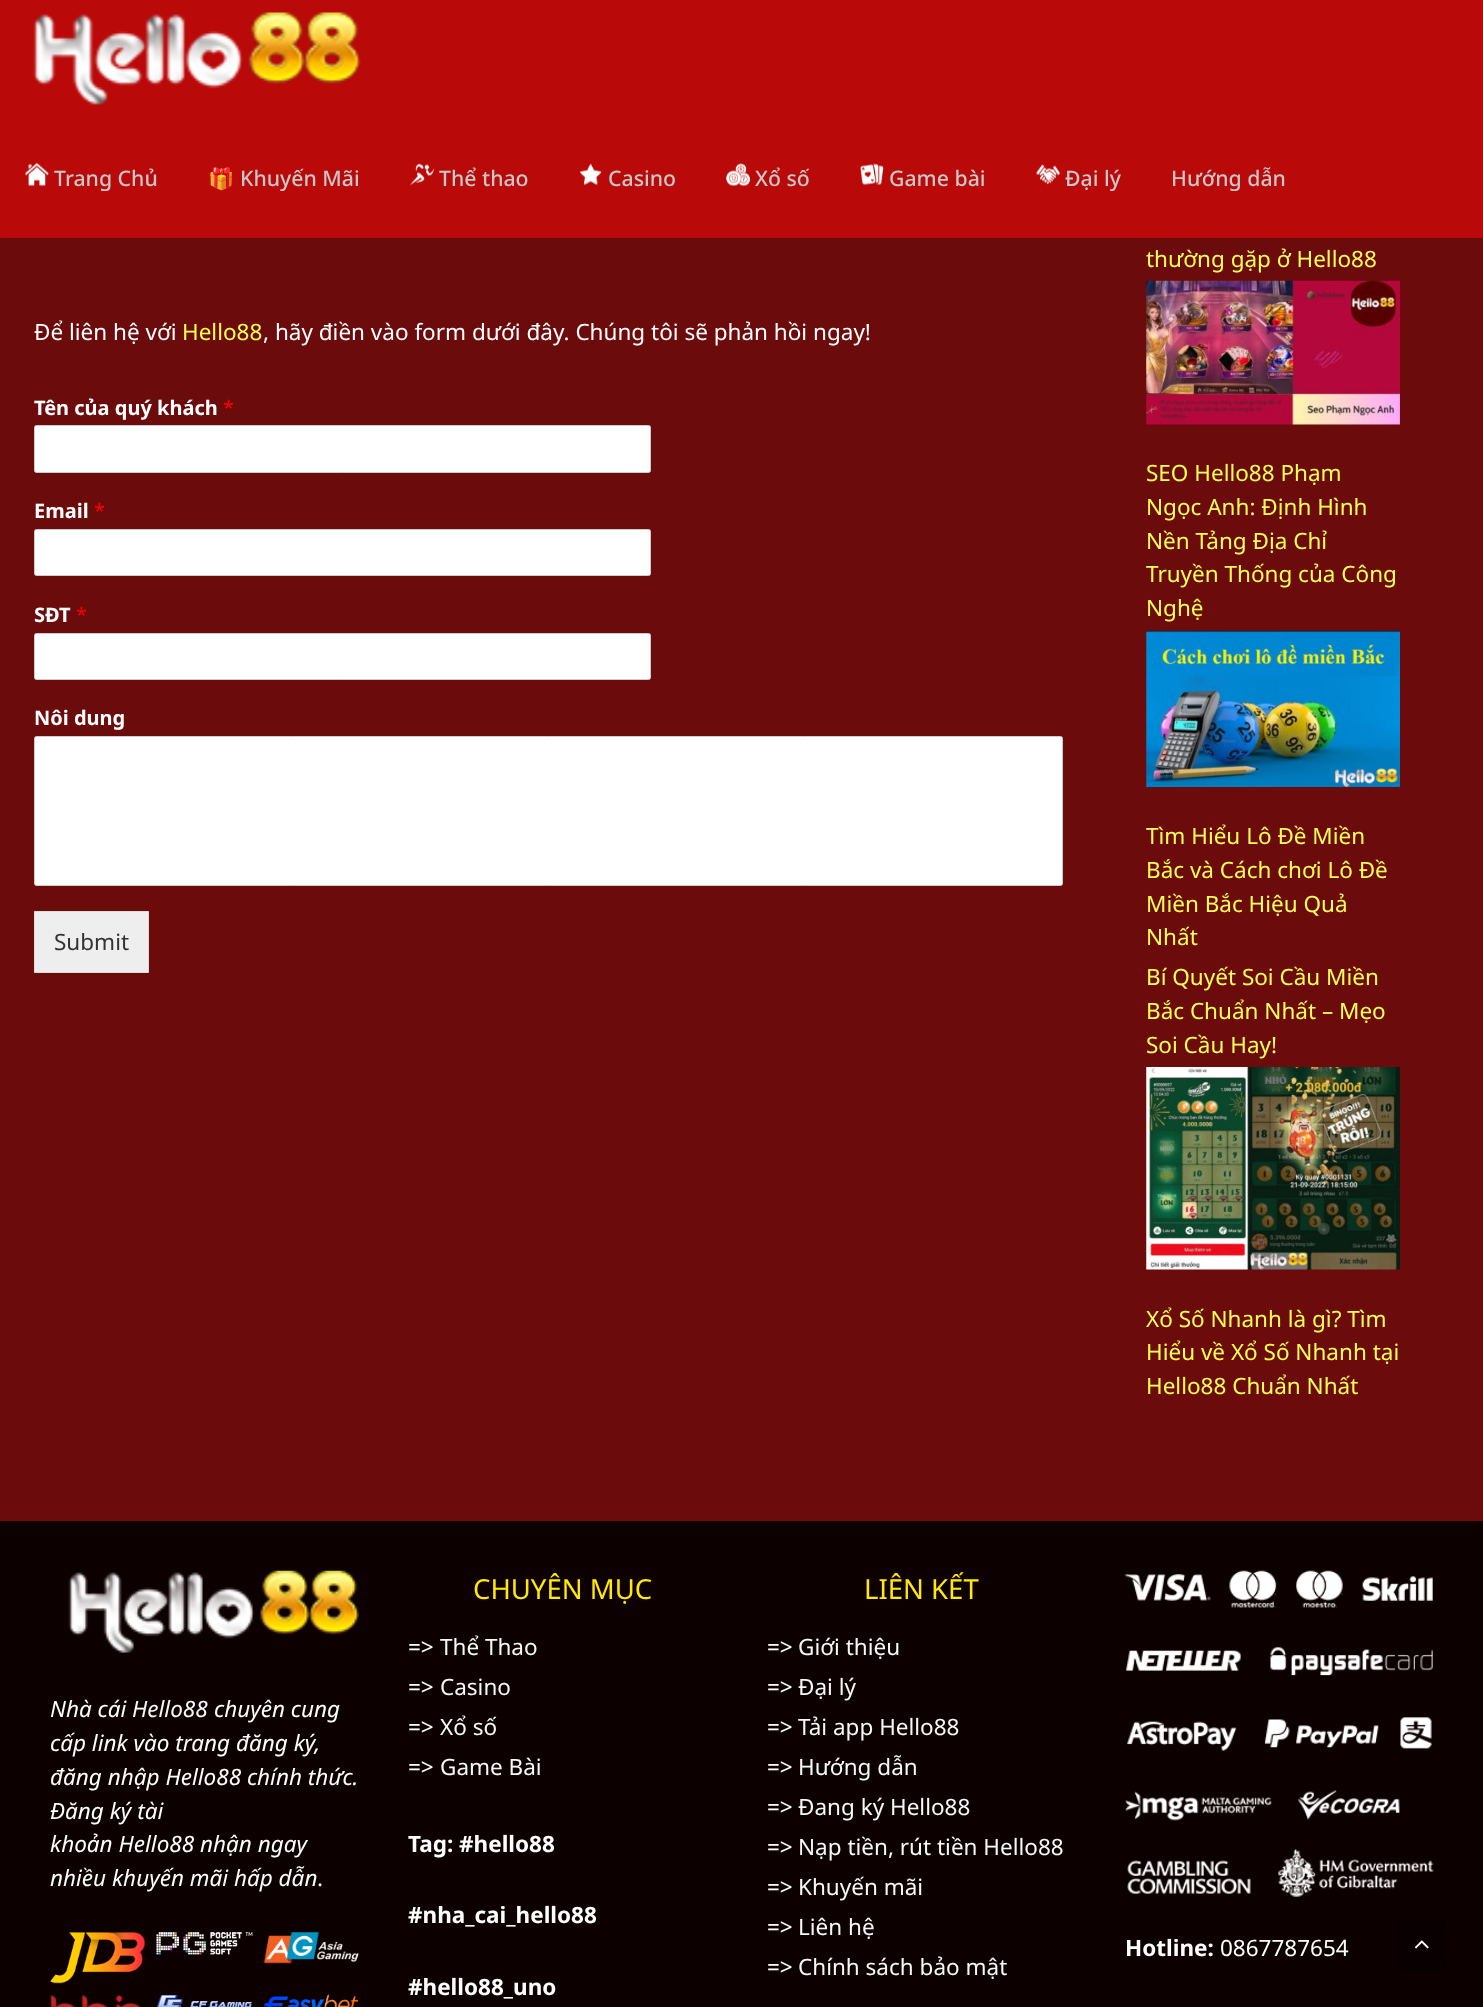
async function draw(canvas) {
  canvas.width = 1483
  canvas.height = 2007
  const ctx = canvas.getContext('2d')
  ctx.miterLimit = 4
  ctx.fontKerning = 'normal'
  async function loadImage(src) {
    const img = new Image()
    img.src = src
    await img.decode()
    return img
  }

  ctx.fillStyle = '#6c0b0b'
  ctx.fillRect(0, 0, 1483, 2007)
  ctx.fillStyle = '#00000033'
  ctx.filter = 'blur(1px)'
  ctx.beginPath()
  ctx.rect(3, 5, 1478, 233)
  ctx.fill()
  ctx.filter = 'none'
  ctx.fillStyle = '#ba0909'
  ctx.fillRect(0, 0, 1483, 238)
  ctx.drawImage(await loadImage('image0.png'), 33, 12, 328, 93)
  ctx.drawImage(await loadImage('image1.png'), 25, 163, 24, 23)
  ctx.font = '500 21.25px Noto Sans'
  ctx.fillStyle = '#c7c7c7'
  ctx.fillText('Trang Chủ', 54, 186)
  ctx.font = '21.25px Noto Color Emoji'
  ctx.fillText('🎁', 208, 186)
  ctx.font = '500 21.25px Noto Sans'
  ctx.fillText('Khuyến Mãi', 240, 186)
  ctx.drawImage(await loadImage('image2.png'), 410, 163, 24, 23)
  ctx.fillText('Thể thao', 439, 186)
  ctx.drawImage(await loadImage('image3.png'), 580, 163, 22, 23)
  ctx.fillText('Casino', 608, 186)
  ctx.drawImage(await loadImage('image4.png'), 726, 163, 24, 23)
  ctx.fillText('Xổ số', 755, 186)
  ctx.drawImage(await loadImage('image5.png'), 860, 163, 24, 23)
  ctx.fillText('Game bài', 889, 186)
  ctx.drawImage(await loadImage('image6.png'), 1036, 164, 24, 21)
  ctx.fillText('Đại lý', 1065, 186)
  ctx.fillText('Hướng dẫn', 1171, 186)
  ctx.font = '22.5px Noto Sans'
  ctx.fillStyle = '#fff'
  ctx.fillText('Để liên hệ với', 34, 340)
  ctx.fillStyle = '#fbff54'
  ctx.fillText('Hello88', 182, 340)
  ctx.fillStyle = '#fff'
  ctx.fillText(', hãy điền vào form dưới đây. Chúng tôi sẽ phản hồi ngay!', 263, 340)
  ctx.font = 'bold 20px Noto Sans'
  ctx.fillText('Tên của quý khách', 34, 415)
  ctx.font = '20px Noto Sans'
  ctx.fillStyle = '#f00'
  ctx.fillText('*', 223, 415)
  ctx.fillStyle = '#fff'
  ctx.beginPath()
  ctx.roundRect(34.5, 425.5, 616, 47, 2)
  ctx.fill()
  ctx.strokeStyle = '#ccc'
  ctx.stroke()
  ctx.font = 'bold 20px Noto Sans'
  ctx.fillText('Email', 34, 518)
  ctx.font = '20px Noto Sans'
  ctx.fillStyle = '#f00'
  ctx.fillText('*', 94, 518)
  ctx.fillStyle = '#fff'
  ctx.beginPath()
  ctx.roundRect(34.5, 529.5, 616, 46, 2)
  ctx.fill()
  ctx.stroke()
  ctx.font = 'bold 20px Noto Sans'
  ctx.fillText('SĐT', 34, 622)
  ctx.font = '20px Noto Sans'
  ctx.fillStyle = '#f00'
  ctx.fillText('*', 76, 622)
  ctx.fillStyle = '#fff'
  ctx.beginPath()
  ctx.roundRect(34.5, 633.5, 616, 46, 2)
  ctx.fill()
  ctx.stroke()
  ctx.font = 'bold 20px Noto Sans'
  ctx.fillText('Nôi dung', 34, 725)
  ctx.beginPath()
  ctx.roundRect(34.5, 736.5, 1028, 149, 2)
  ctx.fill()
  ctx.stroke()
  ctx.fillStyle = '#eee'
  ctx.beginPath()
  ctx.rect(34.5, 911.5, 114, 61)
  ctx.fill()
  ctx.strokeStyle = '#ddd'
  ctx.stroke()
  ctx.font = '22.5px Noto Sans'
  ctx.fillStyle = '#333'
  ctx.fillText('Submit', 54, 950)
  ctx.fillStyle = '#fbff54'
  ctx.fillText('thường gặp ở Hello88', 1146, 267)
  ctx.drawImage(await loadImage('image7.png'), 1146, 280, 254, 145)
  ctx.fillText('SEO Hello88 Phạm', 1146, 481)
  ctx.fillText('Ngọc Anh: Định Hình', 1146, 515)
  ctx.fillText('Nền Tảng Địa Chỉ', 1146, 549)
  ctx.fillText('Truyền Thống của Công', 1146, 582)
  ctx.fillText('Nghệ', 1146, 616)
  ctx.drawImage(await loadImage('image8.png'), 1146, 630, 254, 157)
  ctx.fillText('Tìm Hiểu Lô Đề Miền', 1146, 844)
  ctx.fillText('Bắc và Cách chơi Lô Đề', 1146, 878)
  ctx.fillText('Miền Bắc Hiệu Quả', 1146, 912)
  ctx.fillText('Nhất', 1146, 945)
  ctx.fillText('Bí Quyết Soi Cầu Miền', 1146, 985)
  ctx.fillText('Bắc Chuẩn Nhất – Mẹo', 1146, 1019)
  ctx.fillText('Soi Cầu Hay!', 1146, 1053)
  ctx.drawImage(await loadImage('image9.png'), 1146, 1067, 254, 203)
  ctx.fillText('Xổ Số Nhanh là gì? Tìm', 1146, 1327)
  ctx.fillText('Hiểu về Xổ Số Nhanh tại', 1146, 1360)
  ctx.fillText('Hello88 Chuẩn Nhất', 1146, 1394)
  ctx.fillStyle = '#0d0001'
  ctx.fillRect(0, 1521, 1483, 486)
  ctx.drawImage(await loadImage('image10.png'), 68, 1570, 291, 83)
  ctx.font = 'italic 22.5px Noto Sans'
  ctx.fillStyle = '#fff'
  ctx.fillText('Nhà cái', 50, 1717)
  ctx.fillStyle = '#f7f8f9'
  ctx.fillText('Hello88', 132, 1717)
  ctx.fillStyle = '#fff'
  ctx.fillText('chuyên cung', 214, 1717)
  ctx.fillText('cấp link vào trang đăng ký,', 50, 1751)
  ctx.fillText('đăng nhập Hello88 chính thức.', 50, 1785)
  ctx.fillText('Đăng ký tài', 50, 1819)
  ctx.fillText('khoản Hello88 nhận ngay', 50, 1852)
  ctx.fillText('nhiều khuyến mãi hấp dẫn', 50, 1886)
  ctx.font = '22.5px Noto Sans'
  ctx.fillText('.', 317, 1886)
  ctx.drawImage(await loadImage('image11.png'), 50, 1932, 95, 52)
  ctx.drawImage(await loadImage('image12.png'), 156, 1932, 97, 23)
  ctx.drawImage(await loadImage('image13.png'), 263, 1932, 96, 32)
  ctx.drawImage(await loadImage('image14.png'), 50, 1994, 91, 13)
  ctx.drawImage(await loadImage('image15.png'), 156, 1994, 97, 13)
  ctx.drawImage(await loadImage('image16.png'), 263, 1994, 96, 13)
  ctx.font = '27.5px Noto Sans'
  ctx.fillStyle = '#ffea00'
  ctx.fillText('CHUYÊN MỤC', 473, 1599)
  ctx.font = '22.5px Noto Sans'
  ctx.fillStyle = '#fff'
  ctx.fillText('=>', 408, 1655)
  ctx.fillStyle = '#f7f8f9'
  ctx.fillText('Thể Thao', 440, 1655)
  ctx.fillStyle = '#fff'
  ctx.fillText('=>', 408, 1695)
  ctx.fillStyle = '#f7f8f9'
  ctx.fillText('Casino', 440, 1695)
  ctx.fillStyle = '#fff'
  ctx.fillText('=>', 408, 1735)
  ctx.fillStyle = '#f7f8f9'
  ctx.fillText('Xổ số', 440, 1735)
  ctx.fillStyle = '#fff'
  ctx.fillText('=>', 408, 1775)
  ctx.fillStyle = '#f7f8f9'
  ctx.fillText('Game Bài', 440, 1775)
  ctx.font = 'bold 22.5px Noto Sans'
  ctx.fillStyle = '#fff'
  ctx.fillText('Tag: #hello88', 408, 1852)
  ctx.fillText('#nha_cai_hello88', 408, 1923)
  ctx.fillText('#hello88_uno', 408, 1995)
  ctx.font = '27.5px Noto Sans'
  ctx.fillStyle = '#ffea00'
  ctx.fillText('LIÊN KẾT', 864, 1599)
  ctx.font = '22.5px Noto Sans'
  ctx.fillStyle = '#fff'
  ctx.fillText('=>', 767, 1655)
  ctx.fillStyle = '#f7f8f9'
  ctx.fillText('Giới thiệu', 798, 1655)
  ctx.fillStyle = '#fff'
  ctx.fillText('=>', 767, 1695)
  ctx.fillStyle = '#f7f8f9'
  ctx.fillText('Đại lý', 798, 1695)
  ctx.fillStyle = '#fff'
  ctx.fillText('=>', 767, 1735)
  ctx.fillStyle = '#f7f8f9'
  ctx.fillText('Tải app Hello88', 798, 1735)
  ctx.fillStyle = '#fff'
  ctx.fillText('=>', 767, 1775)
  ctx.fillStyle = '#f7f8f9'
  ctx.fillText('Hướng dẫn', 798, 1775)
  ctx.fillStyle = '#fff'
  ctx.fillText('=>', 767, 1815)
  ctx.fillStyle = '#f7f8f9'
  ctx.fillText('Đang ký Hello88', 798, 1815)
  ctx.fillStyle = '#fff'
  ctx.fillText('=>', 767, 1855)
  ctx.fillStyle = '#f7f8f9'
  ctx.fillText('Nạp tiền, rút tiền Hello88', 798, 1855)
  ctx.fillStyle = '#fff'
  ctx.fillText('=>', 767, 1895)
  ctx.fillStyle = '#f7f8f9'
  ctx.fillText('Khuyến mãi', 798, 1895)
  ctx.fillStyle = '#fff'
  ctx.fillText('=>', 767, 1935)
  ctx.fillStyle = '#f7f8f9'
  ctx.fillText('Liên hệ', 798, 1935)
  ctx.fillStyle = '#fff'
  ctx.fillText('=>', 767, 1975)
  ctx.fillStyle = '#f7f8f9'
  ctx.fillText('Chính sách bảo mật', 798, 1975)
  ctx.drawImage(await loadImage('image17.png'), 1125, 1570, 309, 327)
  ctx.font = 'bold 22.5px Noto Sans'
  ctx.fillStyle = '#fff'
  ctx.fillText('Hotline:', 1125, 1956)
  ctx.font = '22.5px Noto Sans'
  ctx.fillText('0867787654', 1220, 1956)
  ctx.fillStyle = '#080001'
  ctx.beginPath()
  ctx.roundRect(1396, 1920, 50, 50, 4)
  ctx.fill()
  ctx.drawImage(await loadImage('image18.png'), 1414, 1940, 15, 9)
}

draw(document.querySelector('canvas'))
